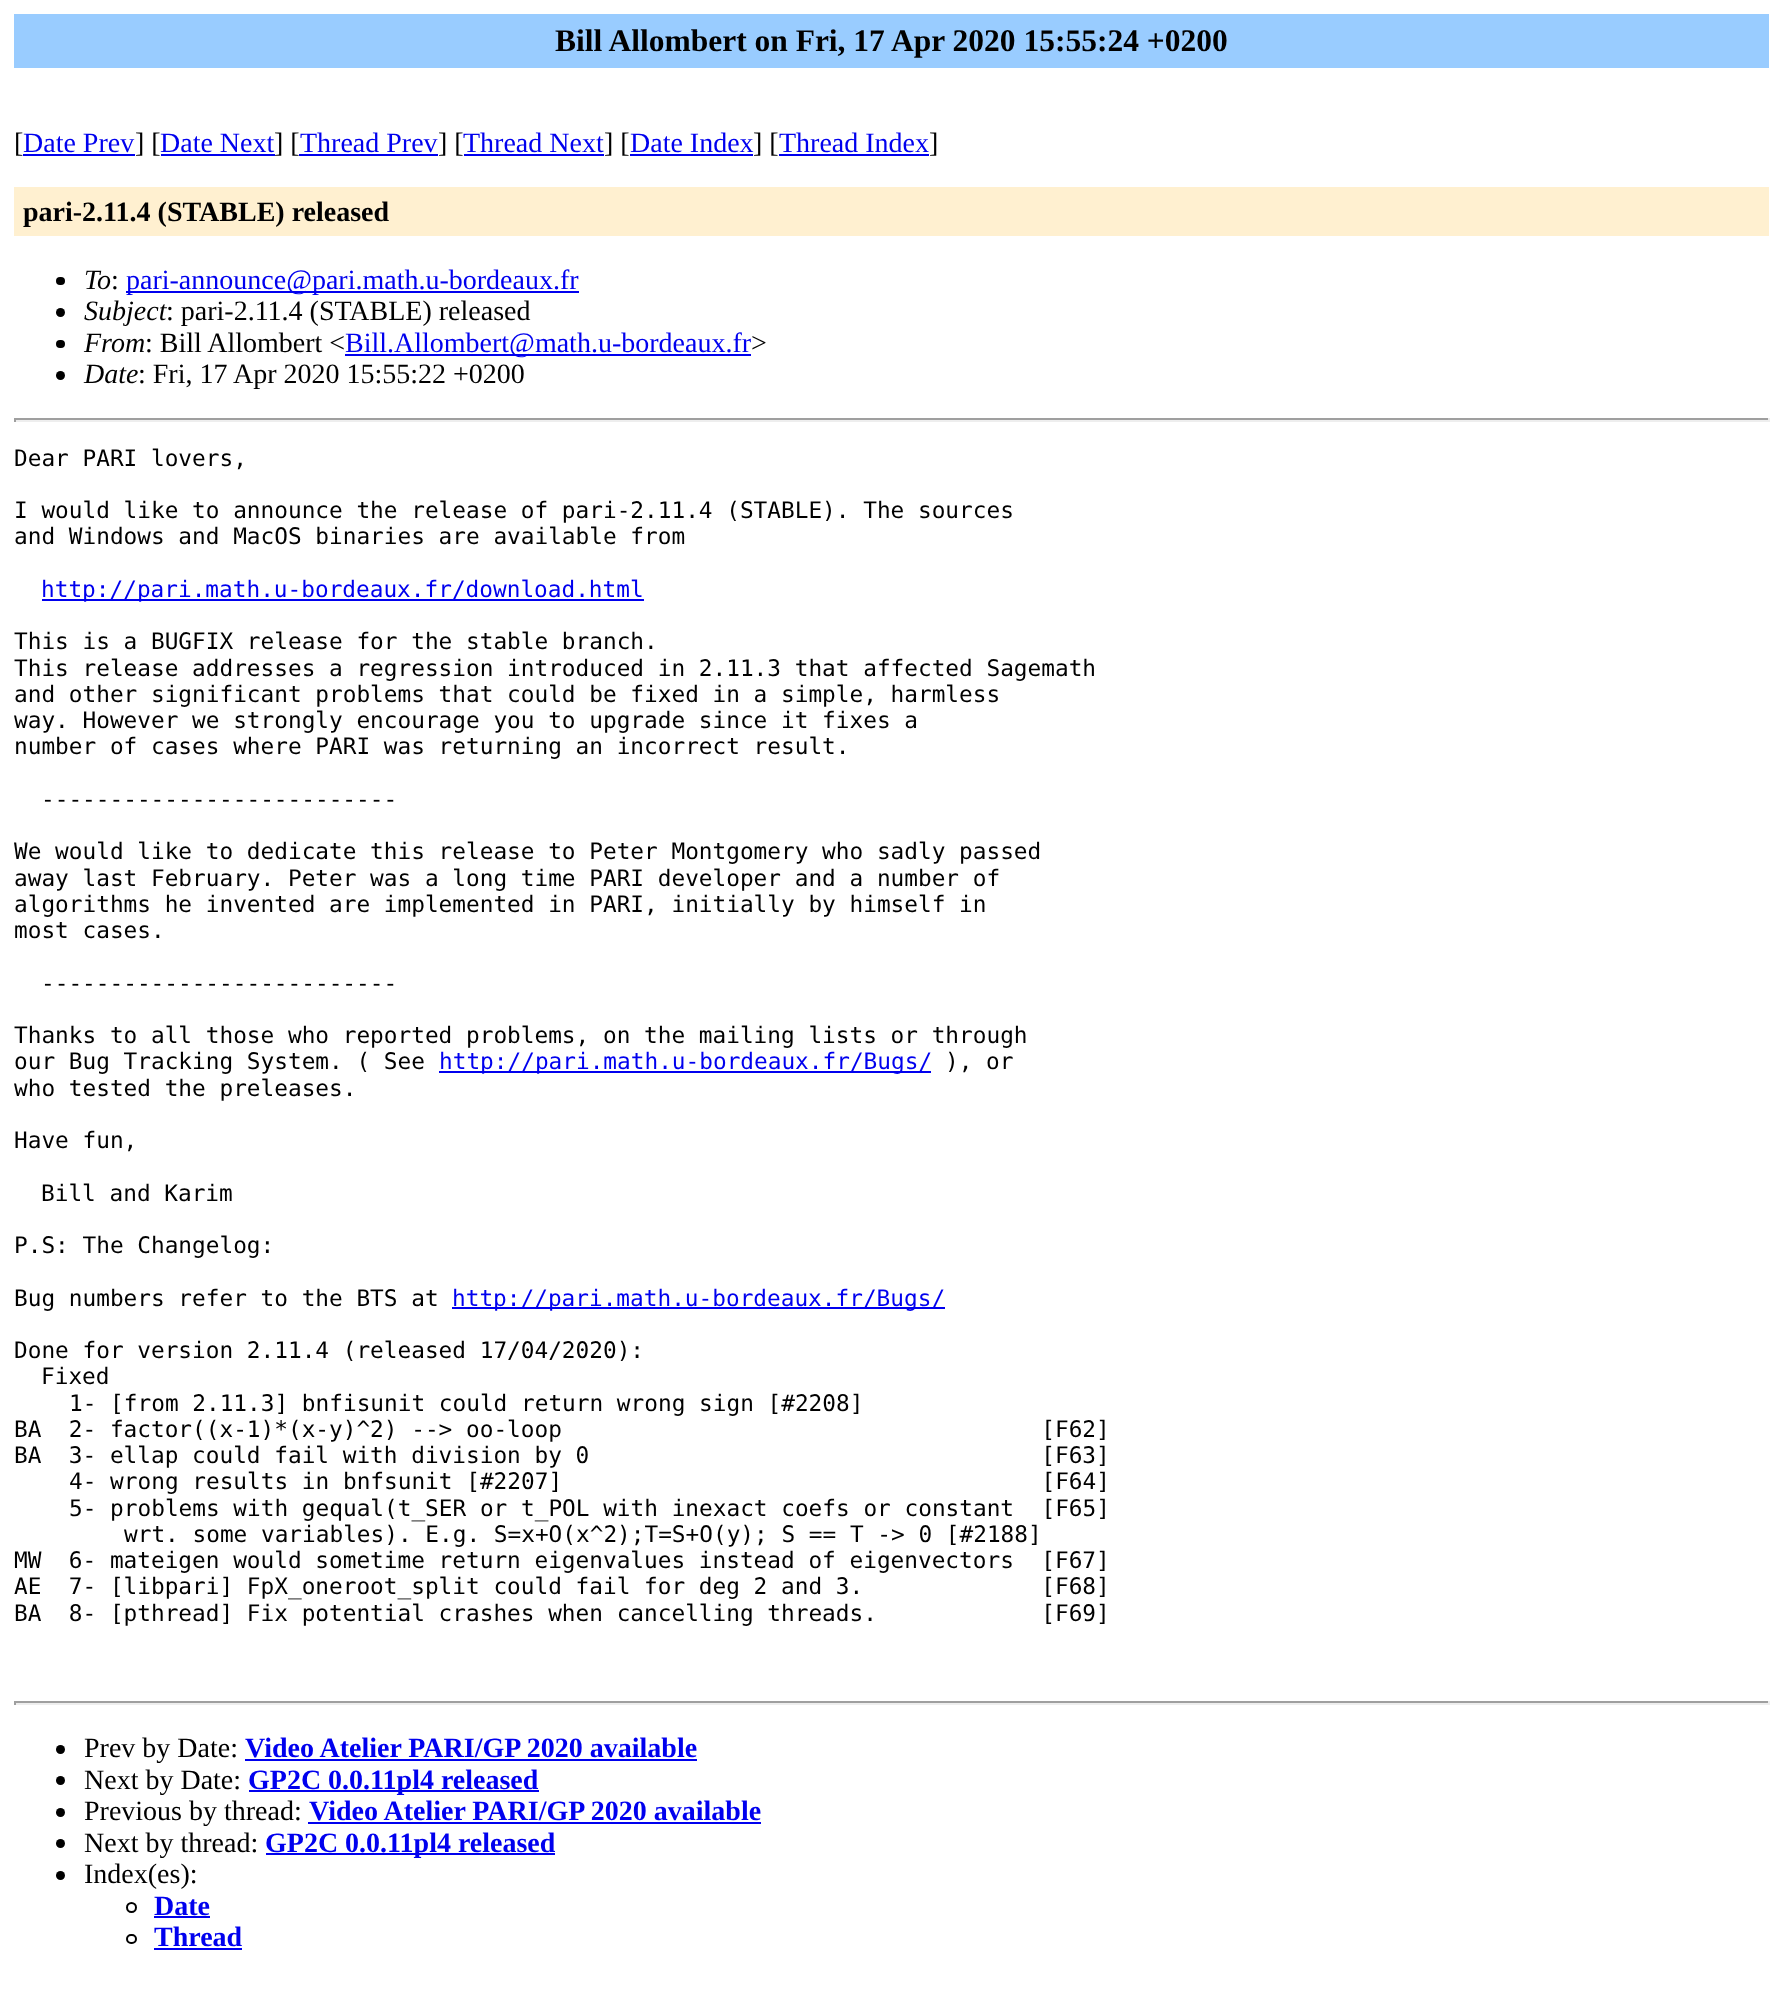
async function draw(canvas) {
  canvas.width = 1782
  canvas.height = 2001
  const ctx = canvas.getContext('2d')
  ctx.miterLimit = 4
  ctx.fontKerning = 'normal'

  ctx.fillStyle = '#fff'
  ctx.fillRect(0, 0, 1782, 2001)
  ctx.fillStyle = '#9cf'
  ctx.fillRect(14, 14, 1755, 54)
  ctx.font = 'bold 31.5px Liberation Serif'
  ctx.fillStyle = '#000'
  ctx.fillText('Bill Allombert on Fri, 17 Apr 2020 15:55:24 +0200', 555, 51)
  ctx.font = '28px Liberation Serif'
  ctx.fillText('[', 14, 152)
  ctx.fillStyle = '#00e'
  ctx.fillText('Date Prev', 23, 152)
  ctx.fillRect(23, 154, 112, 2)
  ctx.fillStyle = '#000'
  ctx.fillText('] [', 135, 152)
  ctx.fillStyle = '#00e'
  ctx.fillText('Date Next', 160, 152)
  ctx.fillRect(161, 154, 114, 2)
  ctx.fillStyle = '#000'
  ctx.fillText('] [', 274, 152)
  ctx.fillStyle = '#00e'
  ctx.fillText('Thread Prev', 300, 152)
  ctx.fillRect(299, 154, 139, 2)
  ctx.fillStyle = '#000'
  ctx.fillText('] [', 438, 152)
  ctx.fillStyle = '#00e'
  ctx.fillText('Thread Next', 463, 152)
  ctx.fillRect(464, 154, 140, 2)
  ctx.fillStyle = '#000'
  ctx.fillText('] [', 604, 152)
  ctx.fillStyle = '#00e'
  ctx.fillText('Date Index', 630, 152)
  ctx.fillRect(630, 154, 123, 2)
  ctx.fillStyle = '#000'
  ctx.fillText('] [', 753, 152)
  ctx.fillStyle = '#00e'
  ctx.fillText('Thread Index', 779, 152)
  ctx.fillRect(779, 154, 150, 2)
  ctx.fillStyle = '#000'
  ctx.fillText(']', 929, 152)
  ctx.fillStyle = '#fff0d0'
  ctx.fillRect(14, 187, 1755, 49)
  ctx.font = 'bold 28px Liberation Serif'
  ctx.fillStyle = '#000'
  ctx.fillText('pari-2.11.4 (STABLE) released', 23, 221)
  ctx.beginPath()
  ctx.roundRect(56, 277, 9, 8, 4)
  ctx.fill()
  ctx.font = 'italic 28px Liberation Serif'
  ctx.fillText('To', 84, 289)
  ctx.font = '28px Liberation Serif'
  ctx.fillText(':', 111, 289)
  ctx.fillStyle = '#00e'
  ctx.fillRect(126, 291, 453, 2)
  ctx.fillText('pari-announce@pari.math.u-bordeaux.fr', 126, 289)
  ctx.fillStyle = '#000'
  ctx.beginPath()
  ctx.arc(60.5, 312.5, 4.5, 0, 2 * Math.PI)
  ctx.fill()
  ctx.font = 'italic 28px Liberation Serif'
  ctx.fillText('Subject', 84, 320)
  ctx.font = '28px Liberation Serif'
  ctx.fillText(': pari-2.11.4 (STABLE) released', 166, 320)
  ctx.beginPath()
  ctx.roundRect(56, 340, 9, 8, 4)
  ctx.fill()
  ctx.font = 'italic 28px Liberation Serif'
  ctx.fillText('From', 84, 352)
  ctx.font = '28px Liberation Serif'
  ctx.fillText(': Bill Allombert <', 145, 352)
  ctx.fillStyle = '#00e'
  ctx.fillRect(345, 354, 406, 2)
  ctx.fillText('Bill.Allombert@math.u-bordeaux.fr', 345, 352)
  ctx.fillStyle = '#000'
  ctx.fillText('>', 751, 352)
  ctx.beginPath()
  ctx.arc(60.5, 375.5, 4.5, 0, 2 * Math.PI)
  ctx.fill()
  ctx.font = 'italic 28px Liberation Serif'
  ctx.fillText('Date', 84, 383)
  ctx.font = '28px Liberation Serif'
  ctx.fillText(': Fri, 17 Apr 2020 15:55:22 +0200', 138, 383)
  ctx.fillStyle = '#9f9f9f'
  ctx.fillRect(14, 418, 1755, 2)
  ctx.fillStyle = '#eee'
  ctx.fillRect(1768, 418, 2, 4)
  ctx.fillRect(14, 420, 1755, 2)
  ctx.fillStyle = '#9f9f9f'
  ctx.fillRect(14, 418, 2, 4)
  ctx.font = '22.75px DejaVu Sans Mono'
  ctx.fillStyle = '#000'
  ctx.fillText('Dear PARI lovers,', 14, 466)
  ctx.fillText('I would like to announce the release of pari-2.11.4 (STABLE). The sources', 14, 518)
  ctx.fillText('and Windows and MacOS binaries are available from', 14, 544)
  ctx.fillStyle = '#00e'
  ctx.fillRect(42, 599, 602, 2)
  ctx.fillText('http://pari.math.u-bordeaux.fr/download.html', 41, 597)
  ctx.fillStyle = '#000'
  ctx.fillText('This is a BUGFIX release for the stable branch.', 14, 649)
  ctx.fillText('This release addresses a regression introduced in 2.11.3 that affected Sagemath', 14, 676)
  ctx.fillText('and other significant problems that could be fixed in a simple, harmless', 14, 702)
  ctx.fillText('way. However we strongly encourage you to upgrade since it fixes a', 14, 728)
  ctx.fillText('number of cases where PARI was returning an incorrect result.', 14, 754)
  ctx.fillText('--------------------------', 41, 807)
  ctx.fillText('We would like to dedicate this release to Peter Montgomery who sadly passed', 14, 859)
  ctx.fillText('away last February. Peter was a long time PARI developer and a number of', 14, 886)
  ctx.fillText('algorithms he invented are implemented in PARI, initially by himself in', 14, 912)
  ctx.fillText('most cases.', 14, 938)
  ctx.fillText('--------------------------', 41, 991)
  ctx.fillText('Thanks to all those who reported problems, on the mailing lists or through', 14, 1043)
  ctx.fillText('our Bug Tracking System. ( See', 14, 1069)
  ctx.fillStyle = '#00e'
  ctx.fillRect(439, 1071, 492, 2)
  ctx.fillText('http://pari.math.u-bordeaux.fr/Bugs/', 439, 1069)
  ctx.fillStyle = '#000'
  ctx.fillText('), or', 945, 1069)
  ctx.fillText('who tested the preleases.', 14, 1096)
  ctx.fillText('Have fun,', 14, 1148)
  ctx.fillText('Bill and Karim', 41, 1201)
  ctx.fillText('P.S: The Changelog:', 14, 1253)
  ctx.fillText('Bug numbers refer to the BTS at', 14, 1306)
  ctx.fillStyle = '#00e'
  ctx.fillRect(452, 1307, 493, 2)
  ctx.fillText('http://pari.math.u-bordeaux.fr/Bugs/', 452, 1306)
  ctx.fillStyle = '#000'
  ctx.fillText('Done for version 2.11.4 (released 17/04/2020):', 14, 1358)
  ctx.fillText('Fixed', 41, 1384)
  ctx.fillText('1- [from 2.11.3] bnfisunit could return wrong sign [#2208]', 69, 1411)
  ctx.fillText('BA  2- factor((x-1)*(x-y)^2) --> oo-loop                                   [F62]', 14, 1437)
  ctx.fillText('BA  3- ellap could fail with division by 0                                 [F63]', 14, 1463)
  ctx.fillText('4- wrong results in bnfsunit [#2207]                                   [F64]', 69, 1489)
  ctx.fillText('5- problems with gequal(t_SER or t_POL with inexact coefs or constant  [F65]', 69, 1516)
  ctx.fillText('wrt. some variables). E.g. S=x+O(x^2);T=S+O(y); S == T -> 0 [#2188]', 124, 1542)
  ctx.fillText('MW  6- mateigen would sometime return eigenvalues instead of eigenvectors  [F67]', 14, 1568)
  ctx.fillText('AE  7- [libpari] FpX_oneroot_split could fail for deg 2 and 3.             [F68]', 14, 1594)
  ctx.fillText('BA  8- [pthread] Fix potential crashes when cancelling threads.            [F69]', 14, 1621)
  ctx.fillStyle = '#9f9f9f'
  ctx.fillRect(14, 1701, 1755, 2)
  ctx.fillStyle = '#eee'
  ctx.fillRect(1768, 1701, 2, 4)
  ctx.fillRect(14, 1703, 1755, 2)
  ctx.fillStyle = '#9f9f9f'
  ctx.fillRect(14, 1701, 2, 4)
  ctx.fillStyle = '#000'
  ctx.beginPath()
  ctx.arc(60.5, 1749.5, 4.5, 0, 2 * Math.PI)
  ctx.fill()
  ctx.font = '28px Liberation Serif'
  ctx.fillText('Prev by Date:', 84, 1757)
  ctx.font = 'bold 28px Liberation Serif'
  ctx.fillStyle = '#00e'
  ctx.fillText('Video Atelier PARI/GP 2020 available', 245, 1757)
  ctx.fillRect(245, 1759, 452, 2)
  ctx.fillStyle = '#000'
  ctx.beginPath()
  ctx.arc(60.5, 1780.5, 4.5, 0, 2 * Math.PI)
  ctx.fill()
  ctx.font = '28px Liberation Serif'
  ctx.fillText('Next by Date:', 84, 1789)
  ctx.fillStyle = '#00e'
  ctx.fillRect(249, 1790, 290, 2)
  ctx.font = 'bold 28px Liberation Serif'
  ctx.fillText('GP2C 0.0.11pl4 released', 248, 1789)
  ctx.fillStyle = '#000'
  ctx.beginPath()
  ctx.arc(60.5, 1812.5, 4.5, 0, 2 * Math.PI)
  ctx.fill()
  ctx.font = '28px Liberation Serif'
  ctx.fillText('Previous by thread:', 84, 1820)
  ctx.font = 'bold 28px Liberation Serif'
  ctx.fillStyle = '#00e'
  ctx.fillText('Video Atelier PARI/GP 2020 available', 309, 1820)
  ctx.fillRect(308, 1822, 453, 2)
  ctx.fillStyle = '#000'
  ctx.beginPath()
  ctx.arc(60.5, 1843.5, 4.5, 0, 2 * Math.PI)
  ctx.fill()
  ctx.font = '28px Liberation Serif'
  ctx.fillText('Next by thread:', 84, 1852)
  ctx.fillStyle = '#00e'
  ctx.fillRect(266, 1853, 289, 2)
  ctx.font = 'bold 28px Liberation Serif'
  ctx.fillText('GP2C 0.0.11pl4 released', 265, 1852)
  ctx.fillStyle = '#000'
  ctx.beginPath()
  ctx.arc(60.5, 1875.5, 4.5, 0, 2 * Math.PI)
  ctx.fill()
  ctx.font = '28px Liberation Serif'
  ctx.fillText('Index(es):', 84, 1883)
  ctx.beginPath()
  ctx.arc(131.5, 1907.5, 4.5, 0, 2 * Math.PI)
  ctx.strokeStyle = '#000'
  ctx.lineWidth = 2
  ctx.stroke()
  ctx.font = 'bold 28px Liberation Serif'
  ctx.fillStyle = '#00e'
  ctx.fillText('Date', 154, 1915)
  ctx.fillRect(154, 1916, 56, 2)
  ctx.beginPath()
  ctx.roundRect(127, 1935, 9, 8, 4)
  ctx.stroke()
  ctx.fillText('Thread', 154, 1946)
  ctx.fillRect(154, 1948, 88, 2)
}

draw(document.querySelector('canvas'))
